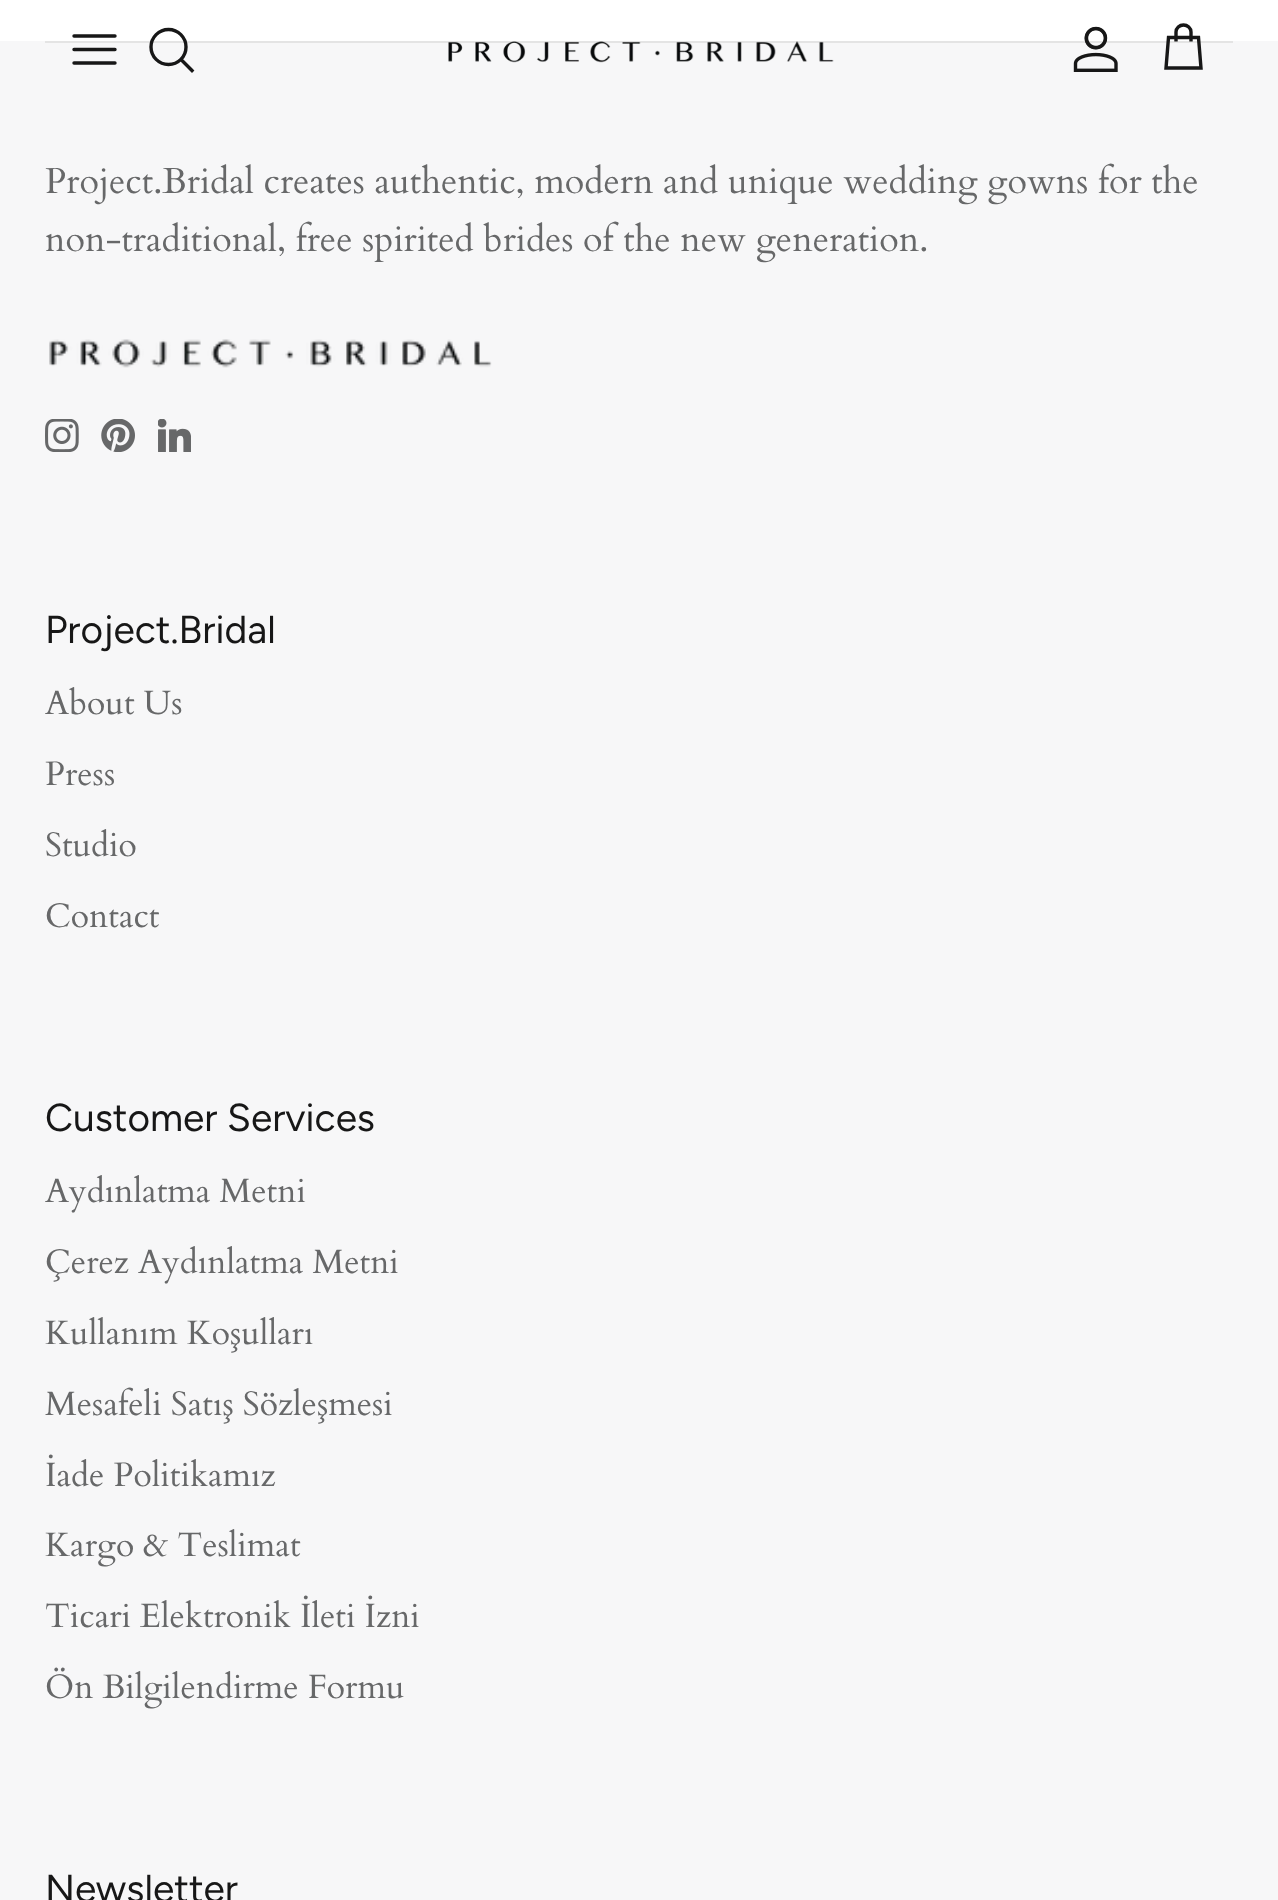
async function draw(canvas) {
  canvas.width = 1278
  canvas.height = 1900
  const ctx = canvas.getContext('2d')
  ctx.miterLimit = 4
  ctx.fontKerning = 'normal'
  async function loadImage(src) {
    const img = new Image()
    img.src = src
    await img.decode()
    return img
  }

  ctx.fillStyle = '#fff'
  ctx.fillRect(0, 0, 1278, 1900)
  ctx.fillStyle = '#f7f7f8'
  ctx.fillRect(0, 41, 1278, 1859)
  ctx.fillStyle = '#e4e4e4'
  ctx.fillRect(45, 41, 1188, 2)
  ctx.beginPath()
  ctx.moveTo(74, 49.5)
  ctx.lineTo(115, 49.5)
  ctx.moveTo(74, 36)
  ctx.lineTo(115, 36)
  ctx.moveTo(74, 63)
  ctx.lineTo(115, 63)
  ctx.strokeStyle = '#171717'
  ctx.lineWidth = 3.4
  ctx.lineCap = 'round'
  ctx.lineJoin = 'round'
  ctx.stroke()
  ctx.beginPath()
  ctx.arc(168.5, 47, 17.5, 0, 2 * Math.PI)
  ctx.stroke()
  ctx.beginPath()
  ctx.moveTo(182, 60.5)
  ctx.lineTo(192, 70.5)
  ctx.lineCap = 'square'
  ctx.lineJoin = 'miter'
  ctx.stroke()
  ctx.drawImage(await loadImage('image0.png'), 448, 41, 386, 22)
  ctx.drawImage(await loadImage('image1.png'), 1073, 26, 45, 46)
  ctx.beginPath()
  ctx.moveTo(1191, 41.5)
  ctx.lineTo(1191, 32)
  ctx.bezierCurveTo(1191, 28, 1187.5, 25, 1183.5, 25)
  ctx.bezierCurveTo(1179.5, 25, 1176, 28, 1176, 32)
  ctx.lineTo(1176, 41.5)
  ctx.moveTo(1168.5, 37.5)
  ctx.lineTo(1198.5, 37.5)
  ctx.lineTo(1201, 68)
  ctx.lineTo(1166, 68)
  ctx.closePath()
  ctx.lineCap = 'butt'
  ctx.stroke()
  ctx.font = '36px Cardo'
  ctx.fillStyle = '#676869'
  ctx.fillText('Project.Bridal creates authentic, modern and unique wedding gowns for the', 45, 193)
  ctx.fillText('non-traditional, free spirited brides of the new generation.', 45, 251)
  ctx.drawImage(await loadImage('image2.png'), 49, 339, 443, 29)
  ctx.drawImage(await loadImage('image3.png'), 45, 419, 34, 33)
  ctx.drawImage(await loadImage('image4.png'), 101, 419, 34, 33)
  ctx.drawImage(await loadImage('image5.png'), 158, 419, 33, 33)
  ctx.font = '38.9px Figtree'
  ctx.fillStyle = '#171717'
  ctx.fillText('Project.Bridal', 45, 643)
  ctx.font = '33.75px Cardo'
  ctx.fillStyle = '#676869'
  ctx.fillText('About Us', 45, 714)
  ctx.fillText('Press', 45, 785)
  ctx.fillText('Studio', 45, 856)
  ctx.fillText('Contact', 45, 927)
  ctx.font = '38.9px Figtree'
  ctx.fillStyle = '#171717'
  ctx.fillText('Customer Services', 45, 1131)
  ctx.font = '33.75px Cardo'
  ctx.fillStyle = '#676869'
  ctx.fillText('Aydınlatma Metni', 45, 1202)
  ctx.fillText('Çerez Aydınlatma Metni', 45, 1273)
  ctx.fillText('Kullanım Koşulları', 45, 1344)
  ctx.fillText('Mesafeli Satış Sözleşmesi', 45, 1415)
  ctx.fillText('İade Politikamız', 45, 1486)
  ctx.fillText('Kargo & Teslimat', 45, 1556)
  ctx.fillText('Ticari Elektronik İleti İzni', 45, 1627)
  ctx.fillText('Ön Bilgilendirme Formu', 45, 1698)
  ctx.font = '38.9px Figtree'
  ctx.fillStyle = '#171717'
  ctx.fillText('Newsletter', 45, 1902)
}

draw(document.querySelector('canvas'))
